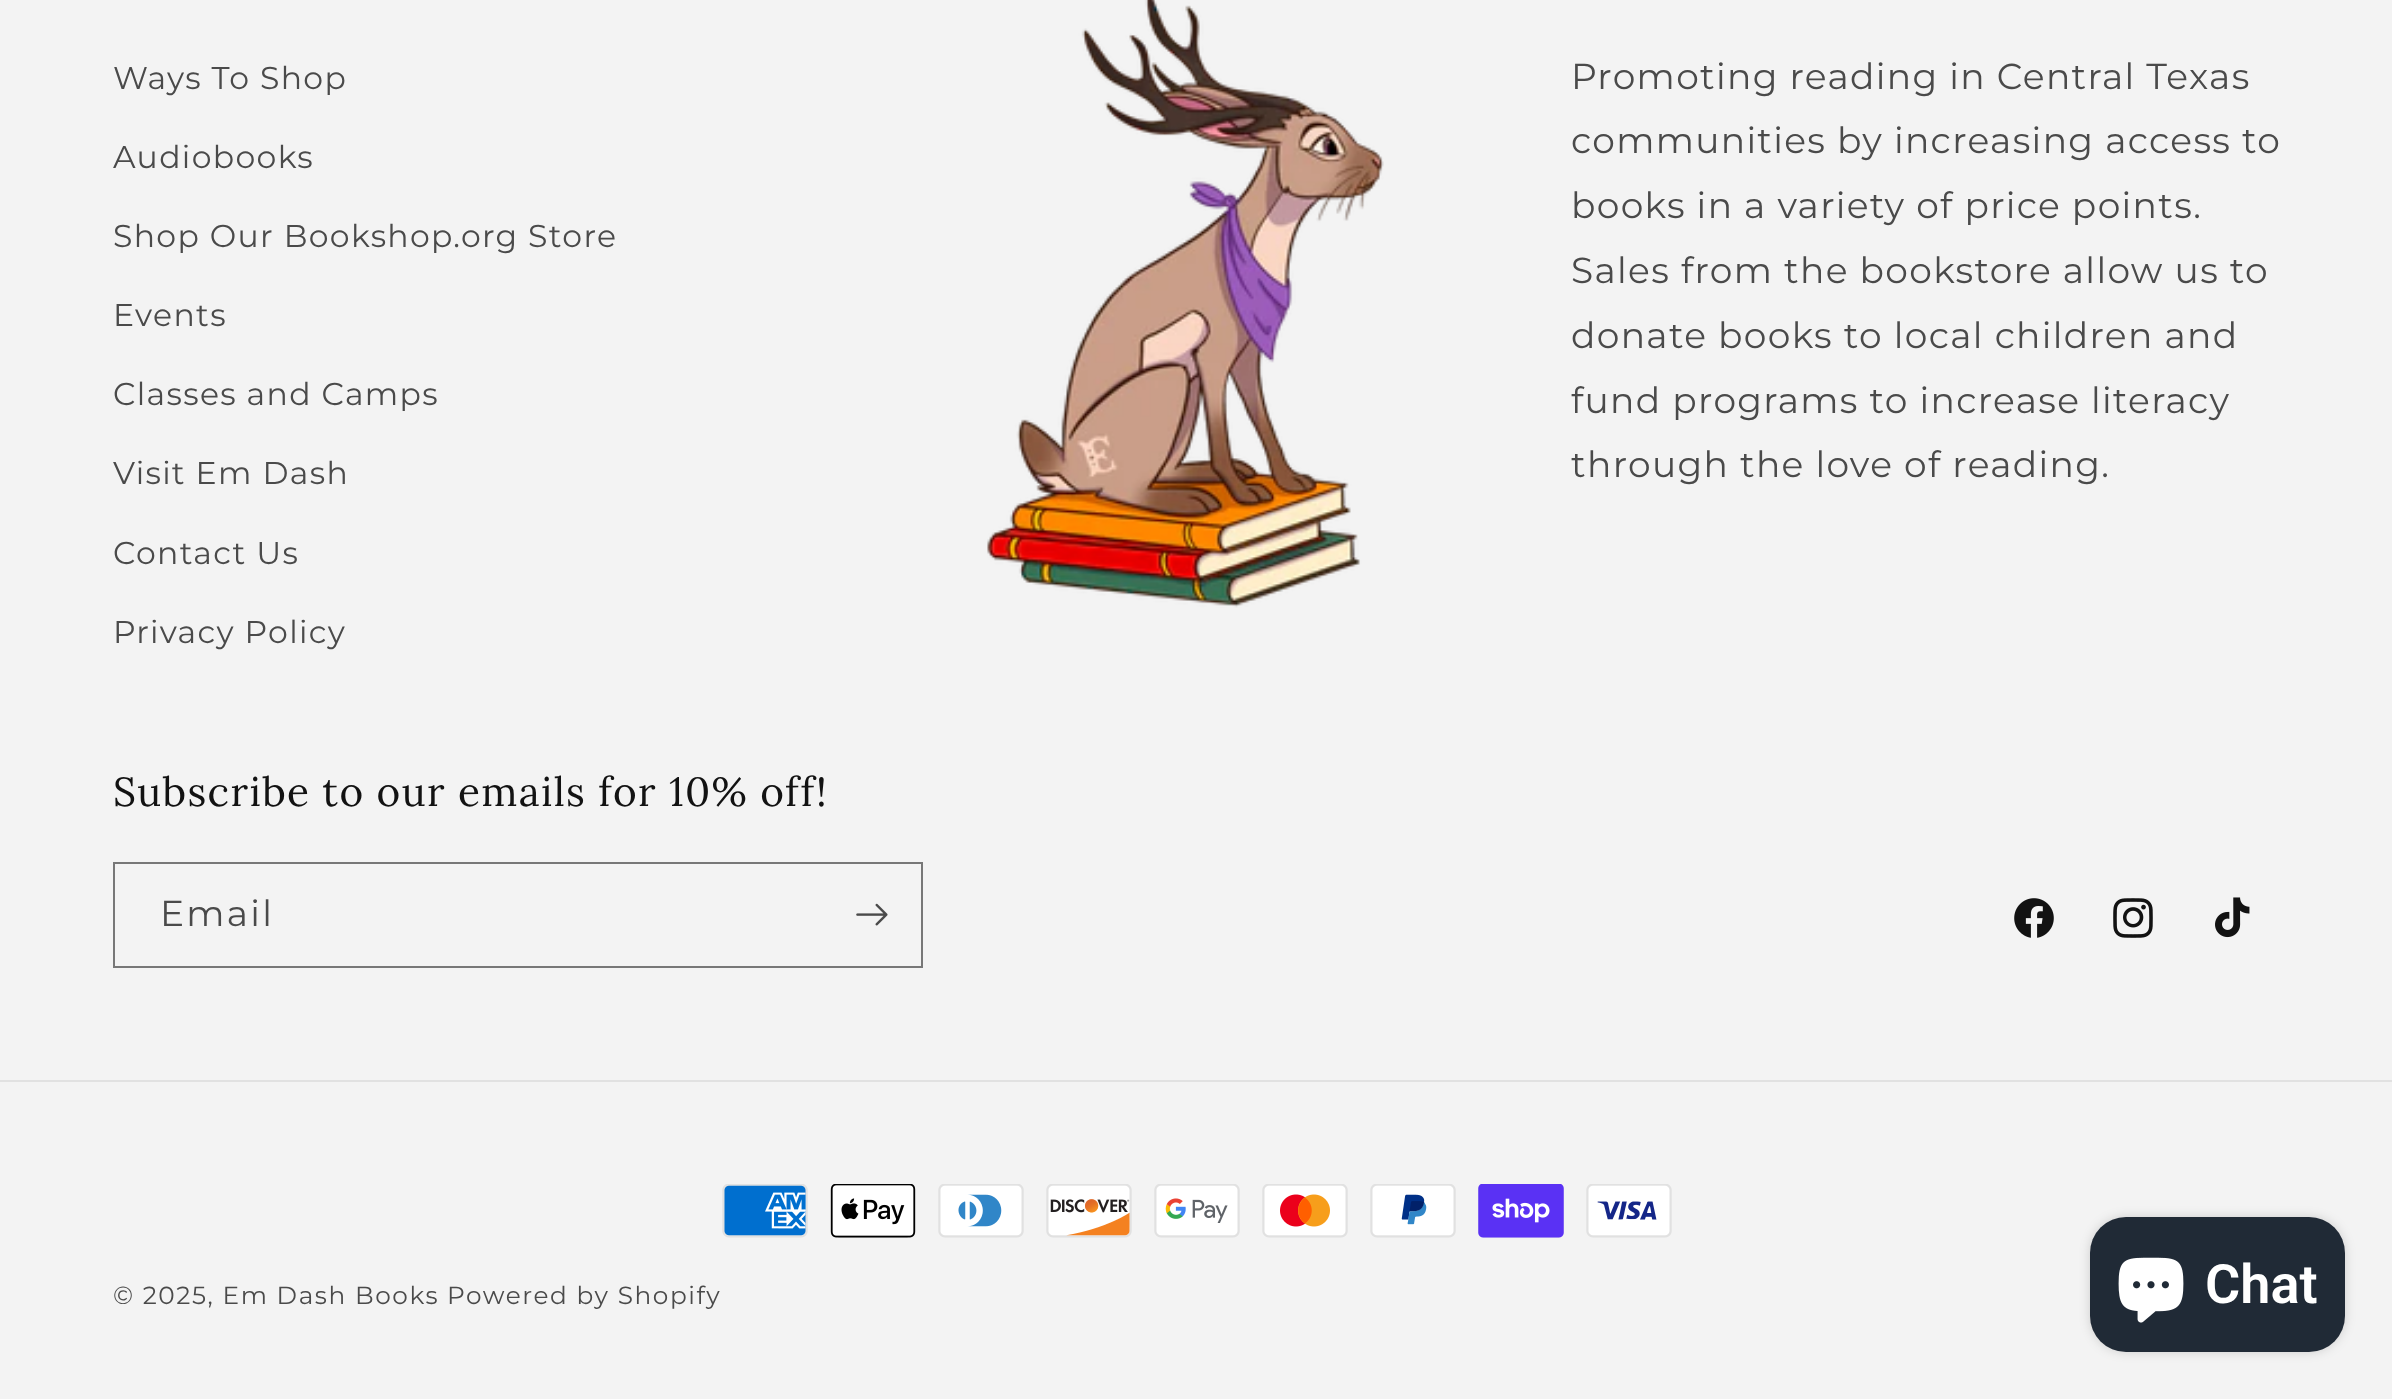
async function draw(canvas) {
  canvas.width = 2392
  canvas.height = 1399
  const ctx = canvas.getContext('2d')
  ctx.miterLimit = 4
  ctx.fontKerning = 'normal'
  async function loadImage(src) {
    const img = new Image()
    img.src = src
    await img.decode()
    return img
  }

  ctx.fillStyle = '#f3f3f3'
  ctx.fillRect(0, 0, 2392, 1399)
  ctx.letterSpacing = '1.35px'
  ctx.font = '31.5px Montserrat'
  ctx.fillStyle = '#4a4a4a'
  ctx.fillText('Ways To Shop', 113, 89)
  ctx.fillText('Audiobooks', 113, 168)
  ctx.fillText('Shop Our Bookshop.org Store', 113, 247)
  ctx.fillText('Events', 113, 326)
  ctx.fillText('Classes and Camps', 113, 405)
  ctx.fillText('Visit Em Dash', 113, 484)
  ctx.fillText('Contact Us', 113, 564)
  ctx.fillText('Privacy Policy', 113, 643)
  ctx.drawImage(await loadImage('image0.png'), 987, 0, 397, 608)
  ctx.font = '36px Montserrat'
  ctx.fillText('Promoting reading in Central Texas', 1571, 89)
  ctx.fillText('communities by increasing access to', 1571, 153)
  ctx.fillText('books in a variety of price points.', 1571, 218)
  ctx.fillText('Sales from the bookstore allow us to', 1571, 283)
  ctx.fillText('donate books to local children and', 1571, 348)
  ctx.fillText('fund programs to increase literacy', 1571, 413)
  ctx.fillText('through the love of reading.', 1571, 477)
  ctx.font = '40.5px Lora'
  ctx.fillStyle = '#121212'
  ctx.fillText('Subscribe to our emails for 10% off!', 113, 806)
  ctx.strokeStyle = '#777'
  ctx.lineWidth = 2
  ctx.strokeRect(114, 863, 808, 104)
  ctx.letterSpacing = '2.25px'
  ctx.font = '36px Montserrat'
  ctx.fillStyle = '#4a4a4a'
  ctx.fillText('Email', 160, 926)
  ctx.drawImage(await loadImage('image1.png'), 856, 903, 32, 23)
  ctx.drawImage(await loadImage('image2.png'), 2014, 898, 40, 40)
  ctx.drawImage(await loadImage('image3.png'), 2113, 898, 40, 40)
  ctx.drawImage(await loadImage('image4.png'), 2215, 897, 35, 41)
  ctx.fillStyle = '#e1e1e1'
  ctx.fillRect(0, 1080, 2392, 2)
  ctx.drawImage(await loadImage('image5.png'), 722, 1184, 86, 54)
  ctx.drawImage(await loadImage('image6.png'), 830, 1184, 86, 54)
  ctx.drawImage(await loadImage('image7.png'), 938, 1184, 86, 54)
  ctx.drawImage(await loadImage('image8.png'), 1046, 1184, 86, 54)
  ctx.drawImage(await loadImage('image9.png'), 1154, 1184, 86, 54)
  ctx.drawImage(await loadImage('image10.png'), 1262, 1184, 86, 54)
  ctx.drawImage(await loadImage('image11.png'), 1370, 1184, 86, 54)
  ctx.drawImage(await loadImage('image12.png'), 1478, 1184, 86, 54)
  ctx.drawImage(await loadImage('image13.png'), 1586, 1184, 86, 54)
  ctx.letterSpacing = '1.6px'
  ctx.font = '24.75px Montserrat'
  ctx.fillStyle = '#4a4a4a'
  ctx.fillText('© 2025, Em Dash Books', 113, 1304)
  ctx.fillText('Powered by Shopify', 447, 1304)
  ctx.fillStyle = '#00000026'
  ctx.filter = 'blur(5.5px)'
  ctx.beginPath()
  ctx.roundRect(2090, 1217, 255, 135, 36)
  ctx.fill()
  ctx.filter = 'none'
  ctx.fillStyle = '#202a36'
  ctx.beginPath()
  ctx.roundRect(2090, 1217, 255, 135, 36)
  ctx.fill()
  ctx.drawImage(await loadImage('image14.png'), 2118, 1257, 66, 66)
  ctx.letterSpacing = '0px'
  ctx.font = '600 54px Roboto'
  ctx.fillStyle = '#fff'
  ctx.fillText('Chat', 2205, 1303)
}

draw(document.querySelector('canvas'))
